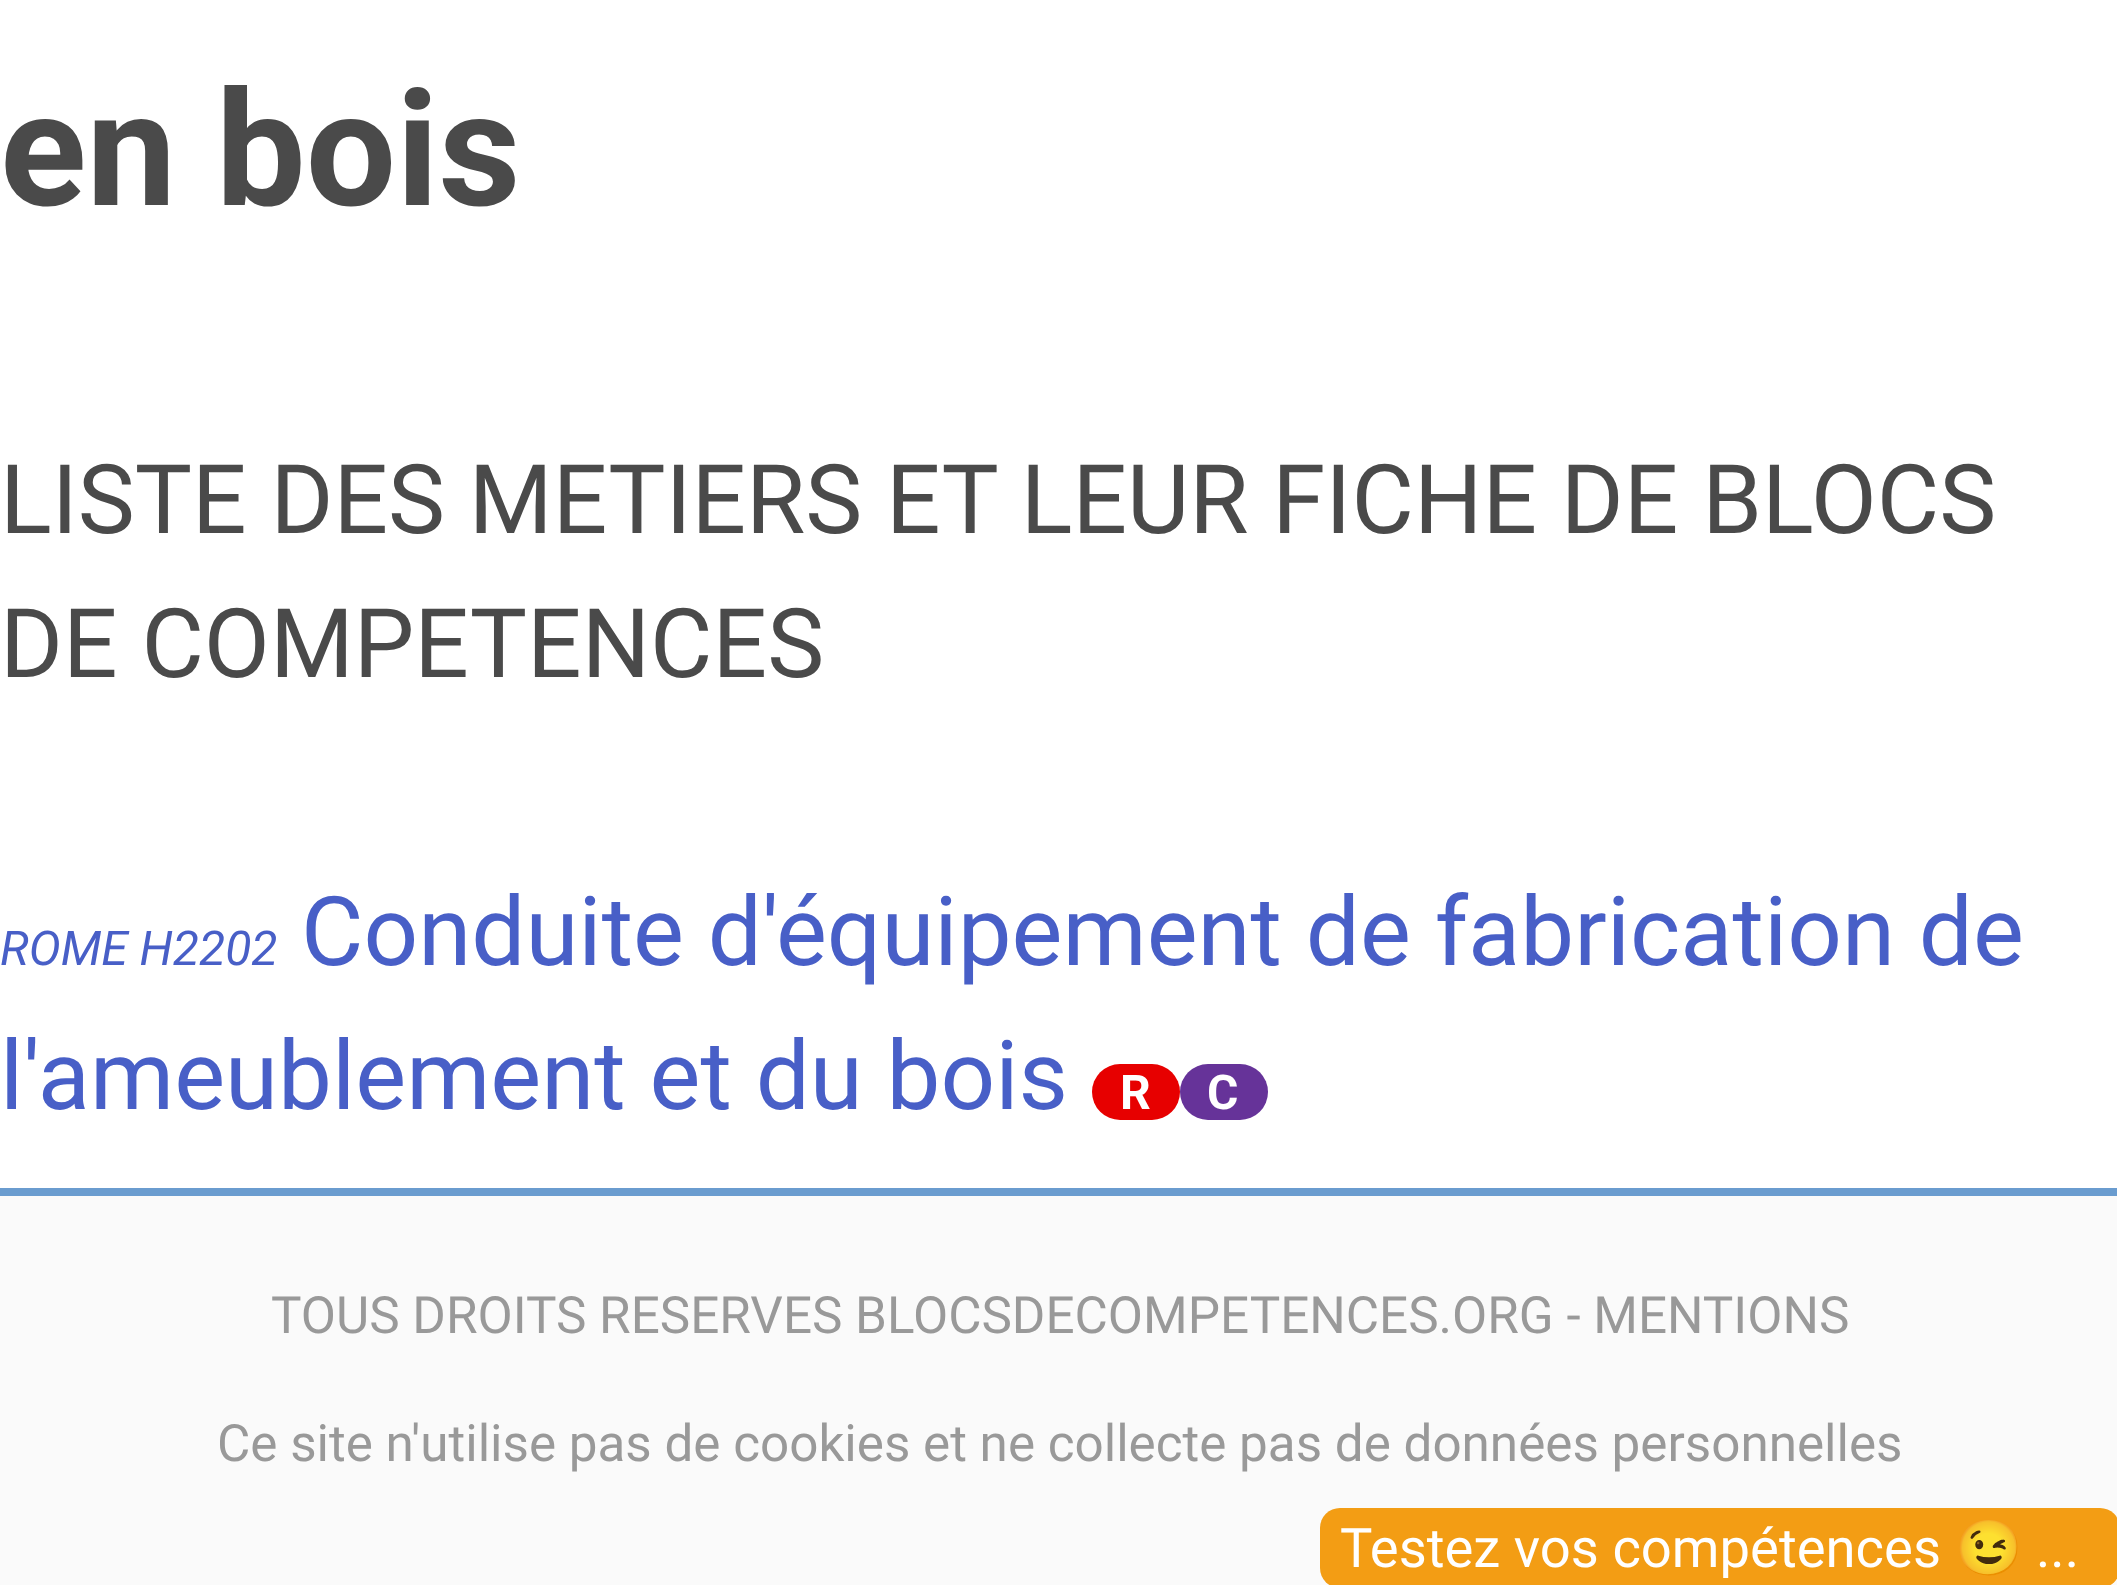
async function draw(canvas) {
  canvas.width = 2117
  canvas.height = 1585
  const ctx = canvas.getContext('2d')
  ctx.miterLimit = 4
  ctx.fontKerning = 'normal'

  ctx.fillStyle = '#fafafa'
  ctx.fillRect(0, 0, 2117, 1585)
  ctx.fillStyle = '#fff'
  ctx.fillRect(0, 0, 2117, 1188)
  ctx.font = 'bold 160px Roboto'
  ctx.fillStyle = '#4a4a4a'
  ctx.fillText('en bois', 0, 205)
  ctx.font = '96px Roboto'
  ctx.fillText('LISTE DES METIERS ET LEUR FICHE DE BLOCS', 0, 533)
  ctx.fillText('DE COMPETENCES', 0, 677)
  ctx.font = 'italic 48px Roboto'
  ctx.fillStyle = '#485fc7'
  ctx.fillText('ROME H2202', 0, 965)
  ctx.font = '96px Roboto'
  ctx.fillText('Conduite d\'équipement de fabrication de', 301, 965)
  ctx.fillText('l\'ameublement et du bois', 0, 1109)
  ctx.fillStyle = '#e70000'
  ctx.beginPath()
  ctx.roundRect(1092, 1064, 88, 56, 28)
  ctx.fill()
  ctx.font = 'bold 48px Roboto'
  ctx.fillStyle = '#fff'
  ctx.fillText('R', 1120, 1109)
  ctx.fillStyle = '#639'
  ctx.beginPath()
  ctx.roundRect(1180, 1064, 88, 56, 28)
  ctx.fill()
  ctx.fillStyle = '#fff'
  ctx.fillText('C', 1207, 1109)
  ctx.fillStyle = '#6a9ccf'
  ctx.fillRect(0, 1188, 2117, 8)
  ctx.font = '51.2px Roboto'
  ctx.fillStyle = '#999'
  ctx.fillText('TOUS DROITS RESERVES BLOCSDECOMPETENCES.ORG - MENTIONS', 271, 1333)
  ctx.fillText('Ce site n\'utilise pas de cookies et ne collecte pas de données personnelles', 217, 1461)
  ctx.fillStyle = '#f39d14'
  ctx.beginPath()
  ctx.roundRect(1320, 1508, 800, 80, 20)
  ctx.fill()
  ctx.font = '54.4px Roboto'
  ctx.fillStyle = '#fff'
  ctx.fillText('Testez vos compétences', 1340, 1567)
  ctx.font = '54.4px Noto Color Emoji'
  ctx.fillText('😉', 1955, 1567)
  ctx.font = '54.4px Roboto'
  ctx.fillText('...', 2036, 1567)
}

draw(document.querySelector('canvas'))
